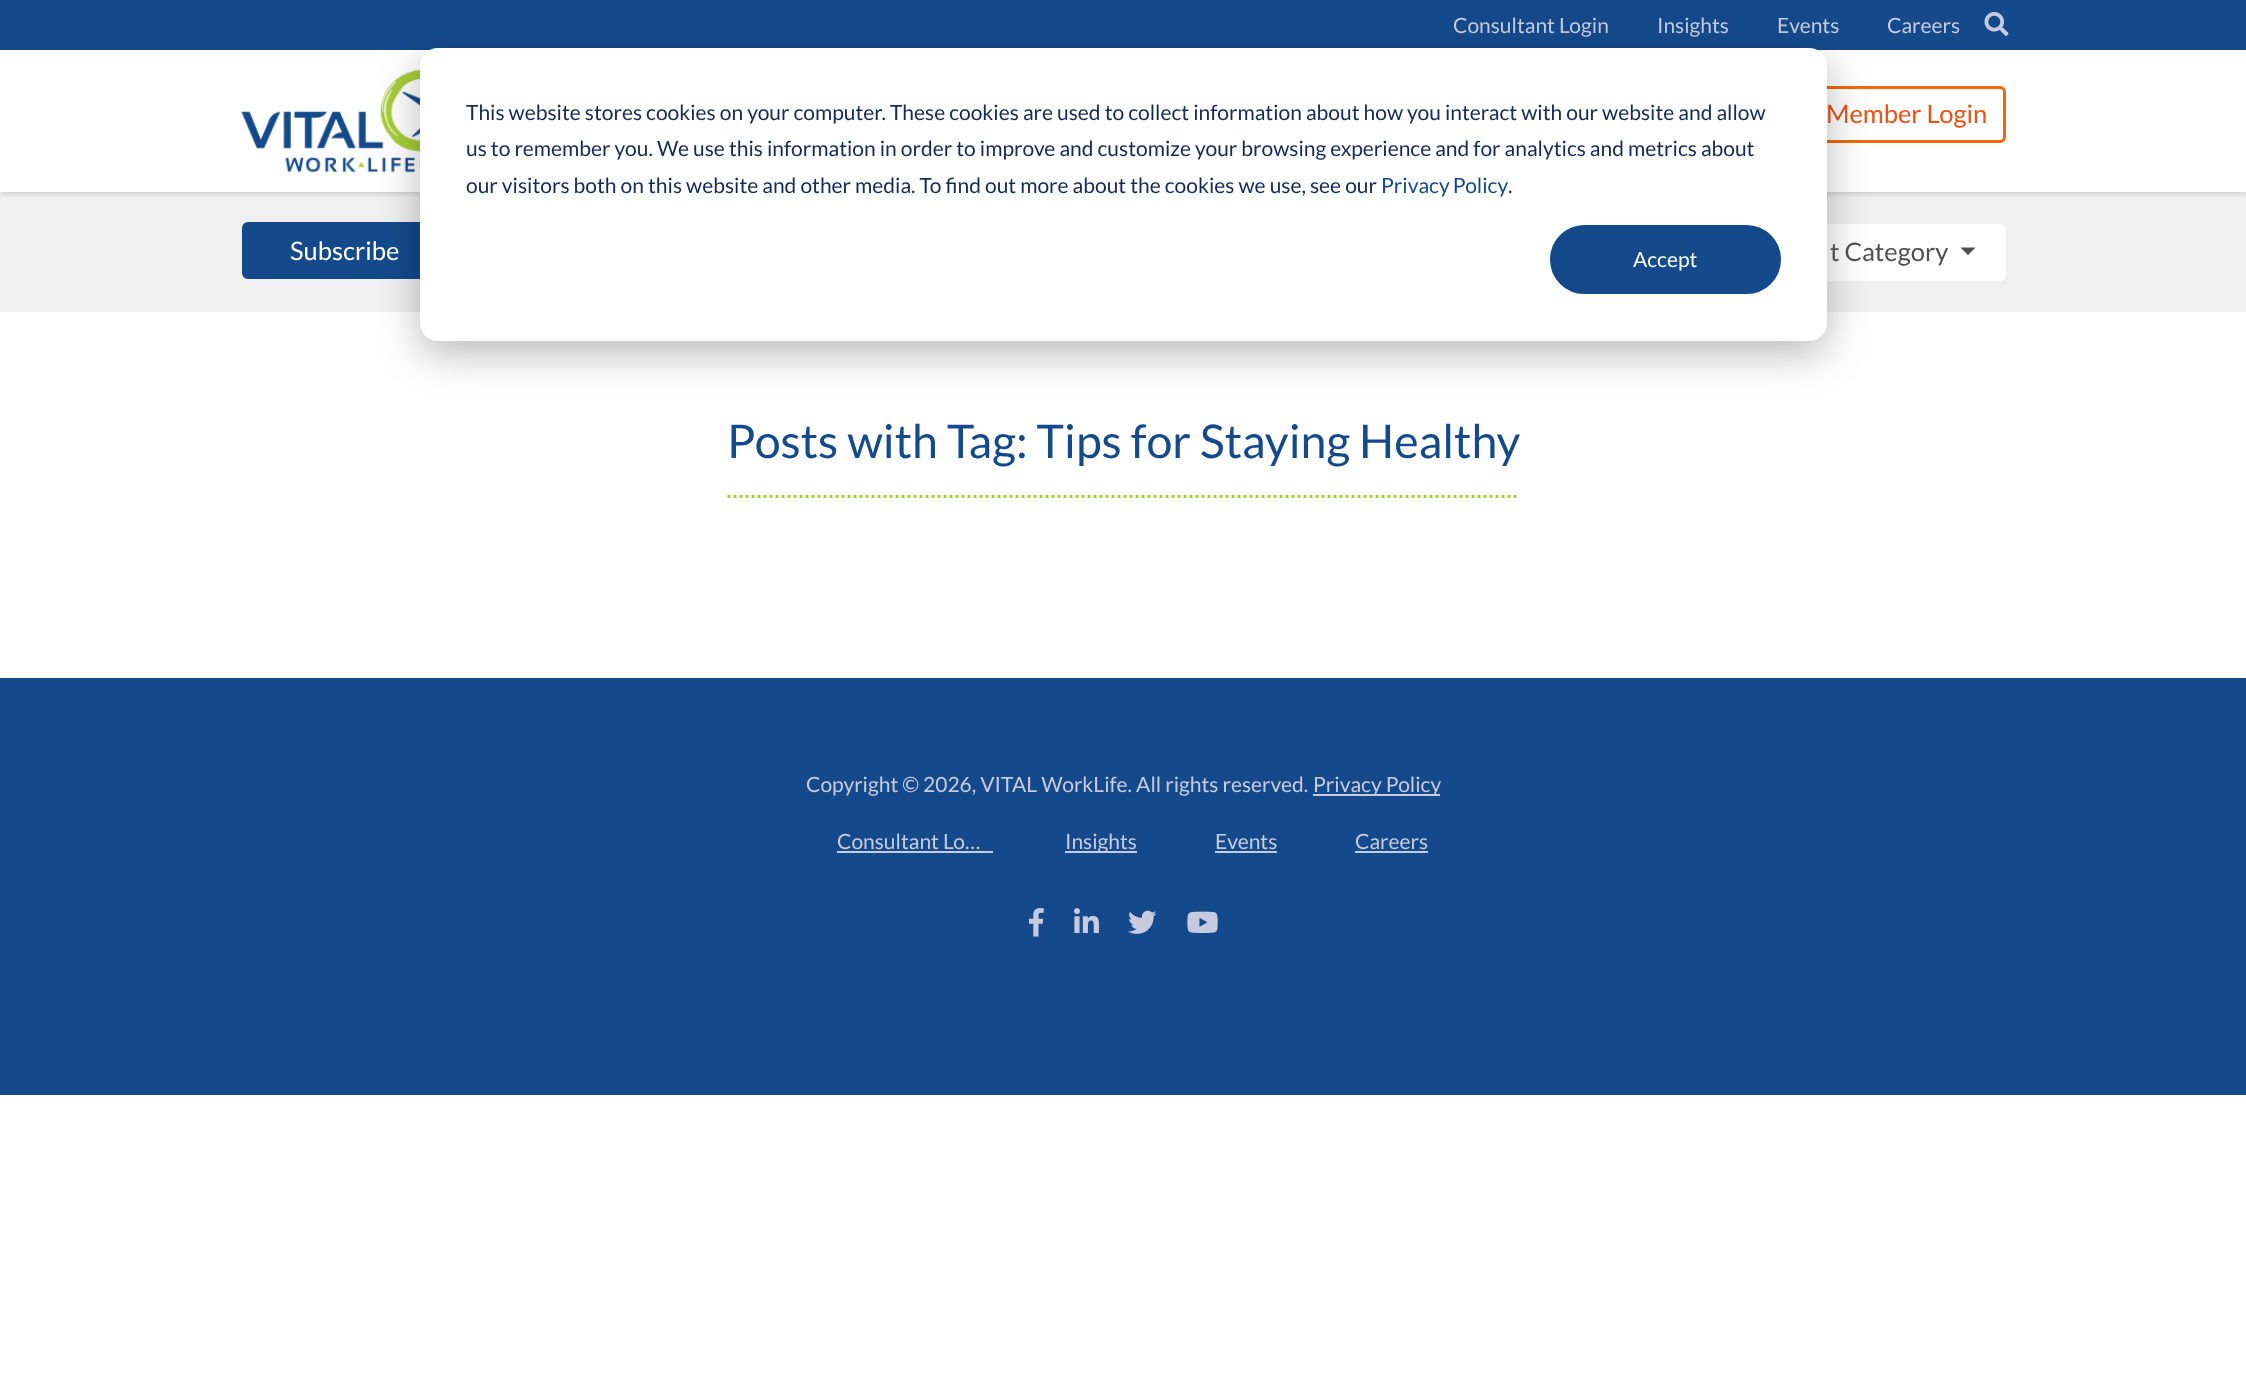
async function draw(canvas) {
  canvas.width = 2246
  canvas.height = 1388
  const ctx = canvas.getContext('2d')
  ctx.miterLimit = 4
  ctx.fontKerning = 'normal'
  async function loadImage(src) {
    const img = new Image()
    img.src = src
    await img.decode()
    return img
  }

  ctx.fillStyle = '#fff'
  ctx.fillRect(0, 0, 2246, 1388)
  ctx.fillStyle = '#f0f0f0'
  ctx.fillRect(0, 192, 2246, 120)
  ctx.save()
  ctx.beginPath()
  ctx.rect(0, 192, 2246, 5)
  ctx.clip()
  ctx.fillStyle = '#00000026'
  ctx.filter = 'blur(3px)'
  ctx.beginPath()
  ctx.rect(0, 2, 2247, 192)
  ctx.fill()
  ctx.filter = 'none'
  ctx.restore()
  ctx.fillStyle = '#144a8c'
  ctx.fillRect(0, 0, 2246, 50)
  ctx.font = '21px Lato'
  ctx.fillStyle = '#c8cbdf'
  ctx.fillText('Consultant Login', 1453, 33)
  ctx.fillText('Insights', 1657, 33)
  ctx.fillText('Events', 1777, 33)
  ctx.fillText('Careers', 1887, 33)
  ctx.drawImage(await loadImage('image0.png'), 1984, 12, 25, 24)
  ctx.drawImage(await loadImage('image1.png'), 241, 69, 179, 104)
  ctx.beginPath()
  ctx.roundRect(1810.5, 87.5, 194, 54, 4.5)
  ctx.strokeStyle = '#f2690a'
  ctx.lineWidth = 3
  ctx.stroke()
  ctx.font = '25.5px Lato'
  ctx.fillStyle = '#ed5013'
  ctx.fillText('Member Login', 1826, 123)
  ctx.fillStyle = '#144a8c'
  ctx.beginPath()
  ctx.roundRect(243.5, 223.5, 202, 54, 4.5)
  ctx.fill()
  ctx.strokeStyle = '#144a8c'
  ctx.stroke()
  ctx.fillStyle = '#fff'
  ctx.beginPath()
  ctx.roundRect(1743.5, 225.5, 261, 54, 4.5)
  ctx.fill()
  ctx.strokeStyle = '#fff'
  ctx.stroke()
  ctx.fillStyle = '#00000047'
  ctx.filter = 'blur(21px)'
  ctx.beginPath()
  ctx.roundRect(420, 60, 1407, 293, 18)
  ctx.fill()
  ctx.filter = 'none'
  ctx.fillStyle = '#fff'
  ctx.beginPath()
  ctx.roundRect(420, 48, 1407, 293, 18)
  ctx.fill()
  ctx.font = '21px Lato'
  ctx.fillStyle = '#15295a'
  ctx.fillText('This website stores cookies on your computer. These cookies are used to collect information about how you interact with our website and allow', 466, 120)
  ctx.fillText('us to remember you. We use this information in order to improve and customize your browsing experience and for analytics and metrics about', 466, 156)
  ctx.fillText('our visitors both on this website and other media. To find out more about the cookies we use, see our', 466, 193)
  ctx.wordSpacing = '-1px'
  ctx.fillStyle = '#144a8c'
  ctx.fillText('Privacy Policy', 1381, 193)
  ctx.wordSpacing = '0px'
  ctx.fillStyle = '#15295a'
  ctx.fillText('.', 1508, 193)
  ctx.fillStyle = '#144a8c'
  ctx.beginPath()
  ctx.roundRect(1551, 226, 229, 67, 33.5)
  ctx.fill()
  ctx.strokeStyle = '#144a8c'
  ctx.lineWidth = 2
  ctx.stroke()
  ctx.font = '21px "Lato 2"'
  ctx.fillStyle = '#fff'
  ctx.fillText('Accept', 1633, 267)
  ctx.font = '25.5px Lato'
  ctx.fillText('Subscribe', 290, 260)
  ctx.fillStyle = '#505050'
  ctx.fillText('t Category', 1830, 261)
  ctx.beginPath()
  ctx.moveTo(1960.5, 247.5)
  ctx.lineTo(1975.5, 247.5)
  ctx.lineTo(1968, 255)
  ctx.closePath()
  ctx.fill()
  ctx.beginPath()
  ctx.moveTo(727.5, 496.5)
  ctx.lineTo(1519.5, 496.5)
  ctx.strokeStyle = '#a5cd3a'
  ctx.lineWidth = 3
  ctx.setLineDash([3, 3])
  ctx.stroke()
  ctx.font = '46.5px Lato'
  ctx.fillStyle = '#144a8c'
  ctx.fillText('Posts with Tag: Tips for Staying Healthy', 727, 458)
  ctx.fillRect(0, 678, 2246, 417)
  ctx.font = '21px Lato'
  ctx.fillStyle = '#c8cbdf'
  ctx.fillText('Copyright © 2026, VITAL WorkLife. All rights reserved.', 806, 792)
  ctx.fillRect(1313, 794, 127, 2)
  ctx.fillText('Privacy Policy', 1313, 792)
  ctx.fillText('Consultant Lo…', 837, 849)
  ctx.fillRect(837, 851, 156, 2)
  ctx.fillRect(1065, 851, 72, 2)
  ctx.fillText('Insights', 1065, 849)
  ctx.fillText('Events', 1215, 849)
  ctx.fillRect(1215, 851, 62, 2)
  ctx.fillText('Careers', 1355, 849)
  ctx.fillRect(1355, 851, 73, 2)
  ctx.drawImage(await loadImage('image2.png'), 1029, 908, 15, 29)
  ctx.drawImage(await loadImage('image3.png'), 1074, 908, 25, 25)
  ctx.drawImage(await loadImage('image4.png'), 1128, 910, 29, 24)
  ctx.drawImage(await loadImage('image5.png'), 1187, 911, 31, 22)
}

draw(document.querySelector('canvas'))
